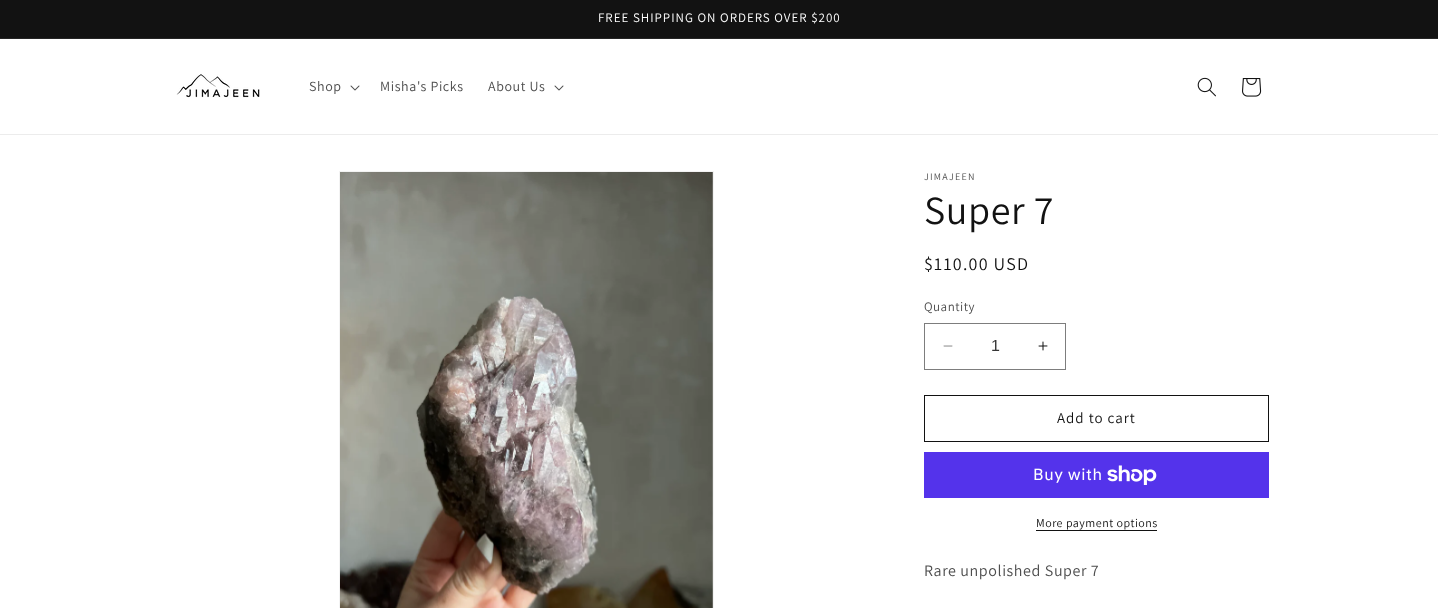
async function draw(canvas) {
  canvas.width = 1438
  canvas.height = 608
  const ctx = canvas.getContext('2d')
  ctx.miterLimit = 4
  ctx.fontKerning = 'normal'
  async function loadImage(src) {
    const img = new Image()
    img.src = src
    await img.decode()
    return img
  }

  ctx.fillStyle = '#fff'
  ctx.fillRect(0, 0, 1438, 608)
  ctx.fillStyle = '#121212'
  ctx.fillRect(0, 0, 1438, 38)
  ctx.fillStyle = '#252525'
  ctx.fillRect(0, 38, 1438, 1)
  ctx.letterSpacing = '1px'
  ctx.font = '13px Assistant'
  ctx.fillStyle = '#fff'
  ctx.fillText('FREE SHIPPING ON ORDERS OVER $200', 598, 22)
  ctx.fillStyle = '#ececec'
  ctx.fillRect(0, 134, 1438, 1)
  ctx.drawImage(await loadImage('image0.png'), 176, 74, 84, 24)
  ctx.letterSpacing = '0.6px'
  ctx.font = '14px Assistant'
  ctx.fillStyle = '#4d4d4d'
  ctx.fillText('Shop', 309, 91)
  ctx.drawImage(await loadImage('image1.png'), 350, 85, 10, 6)
  ctx.fillText('Misha\'s Picks', 380, 91)
  ctx.fillText('About Us', 488, 91)
  ctx.drawImage(await loadImage('image1.png'), 554, 85, 10, 6)
  ctx.drawImage(await loadImage('image2.png'), 1197, 77, 19, 20)
  ctx.drawImage(await loadImage('image3.png'), 1242, 78, 20, 19)
  ctx.strokeStyle = '#f3f3f3'
  ctx.strokeRect(339.5, 171.5, 374, 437)
  ctx.drawImage(await loadImage('image4.png'), 340, 172, 373, 436)
  ctx.letterSpacing = '1.25px'
  ctx.font = '10px Assistant'
  ctx.fillText('JIMAJEEN', 924, 180)
  ctx.letterSpacing = '0.6px'
  ctx.font = '40px Assistant'
  ctx.fillStyle = '#121212'
  ctx.fillText('Super 7', 924, 224)
  ctx.letterSpacing = '1.25px'
  ctx.font = '18px Assistant'
  ctx.fillText('$110.00 USD', 924, 270)
  ctx.letterSpacing = '0.5px'
  ctx.font = '13px Assistant'
  ctx.fillStyle = '#4d4d4d'
  ctx.fillText('Quantity', 924, 311)
  ctx.drawImage(await loadImage('image5.png'), 943, 345, 10, 2)
  ctx.drawImage(await loadImage('image6.png'), 1038, 341, 10, 10)
  ctx.strokeStyle = '#7d7d7d'
  ctx.strokeRect(924.5, 323.5, 141, 46)
  ctx.letterSpacing = '0px'
  ctx.font = '16px Liberation Sans'
  ctx.fillStyle = '#363636'
  ctx.fillText('1', 991, 351)
  ctx.strokeStyle = '#121212'
  ctx.strokeRect(924.5, 395.5, 344, 46)
  ctx.letterSpacing = '1px'
  ctx.font = '15px Assistant'
  ctx.fillStyle = '#121212'
  ctx.fillText('Add to cart', 1057, 423)
  ctx.fillStyle = '#5433eb'
  ctx.fillRect(924, 452, 345, 46)
  ctx.letterSpacing = '0.6px'
  ctx.font = '16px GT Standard'
  ctx.fillStyle = '#fff'
  ctx.fillText('Buy with', 1033, 480)
  ctx.drawImage(await loadImage('image7.png'), 1107, 465, 50, 20)
  ctx.letterSpacing = '0.5px'
  ctx.font = '12px Assistant'
  ctx.fillStyle = '#121212'
  ctx.fillText('More payment options', 1036, 527)
  ctx.fillRect(1036, 530, 121, 1)
  ctx.letterSpacing = '0.6px'
  ctx.font = '16px Assistant'
  ctx.fillStyle = '#4d4d4d'
  ctx.fillText('Rare unpolished Super 7', 924, 576)
}

draw(document.querySelector('canvas'))
